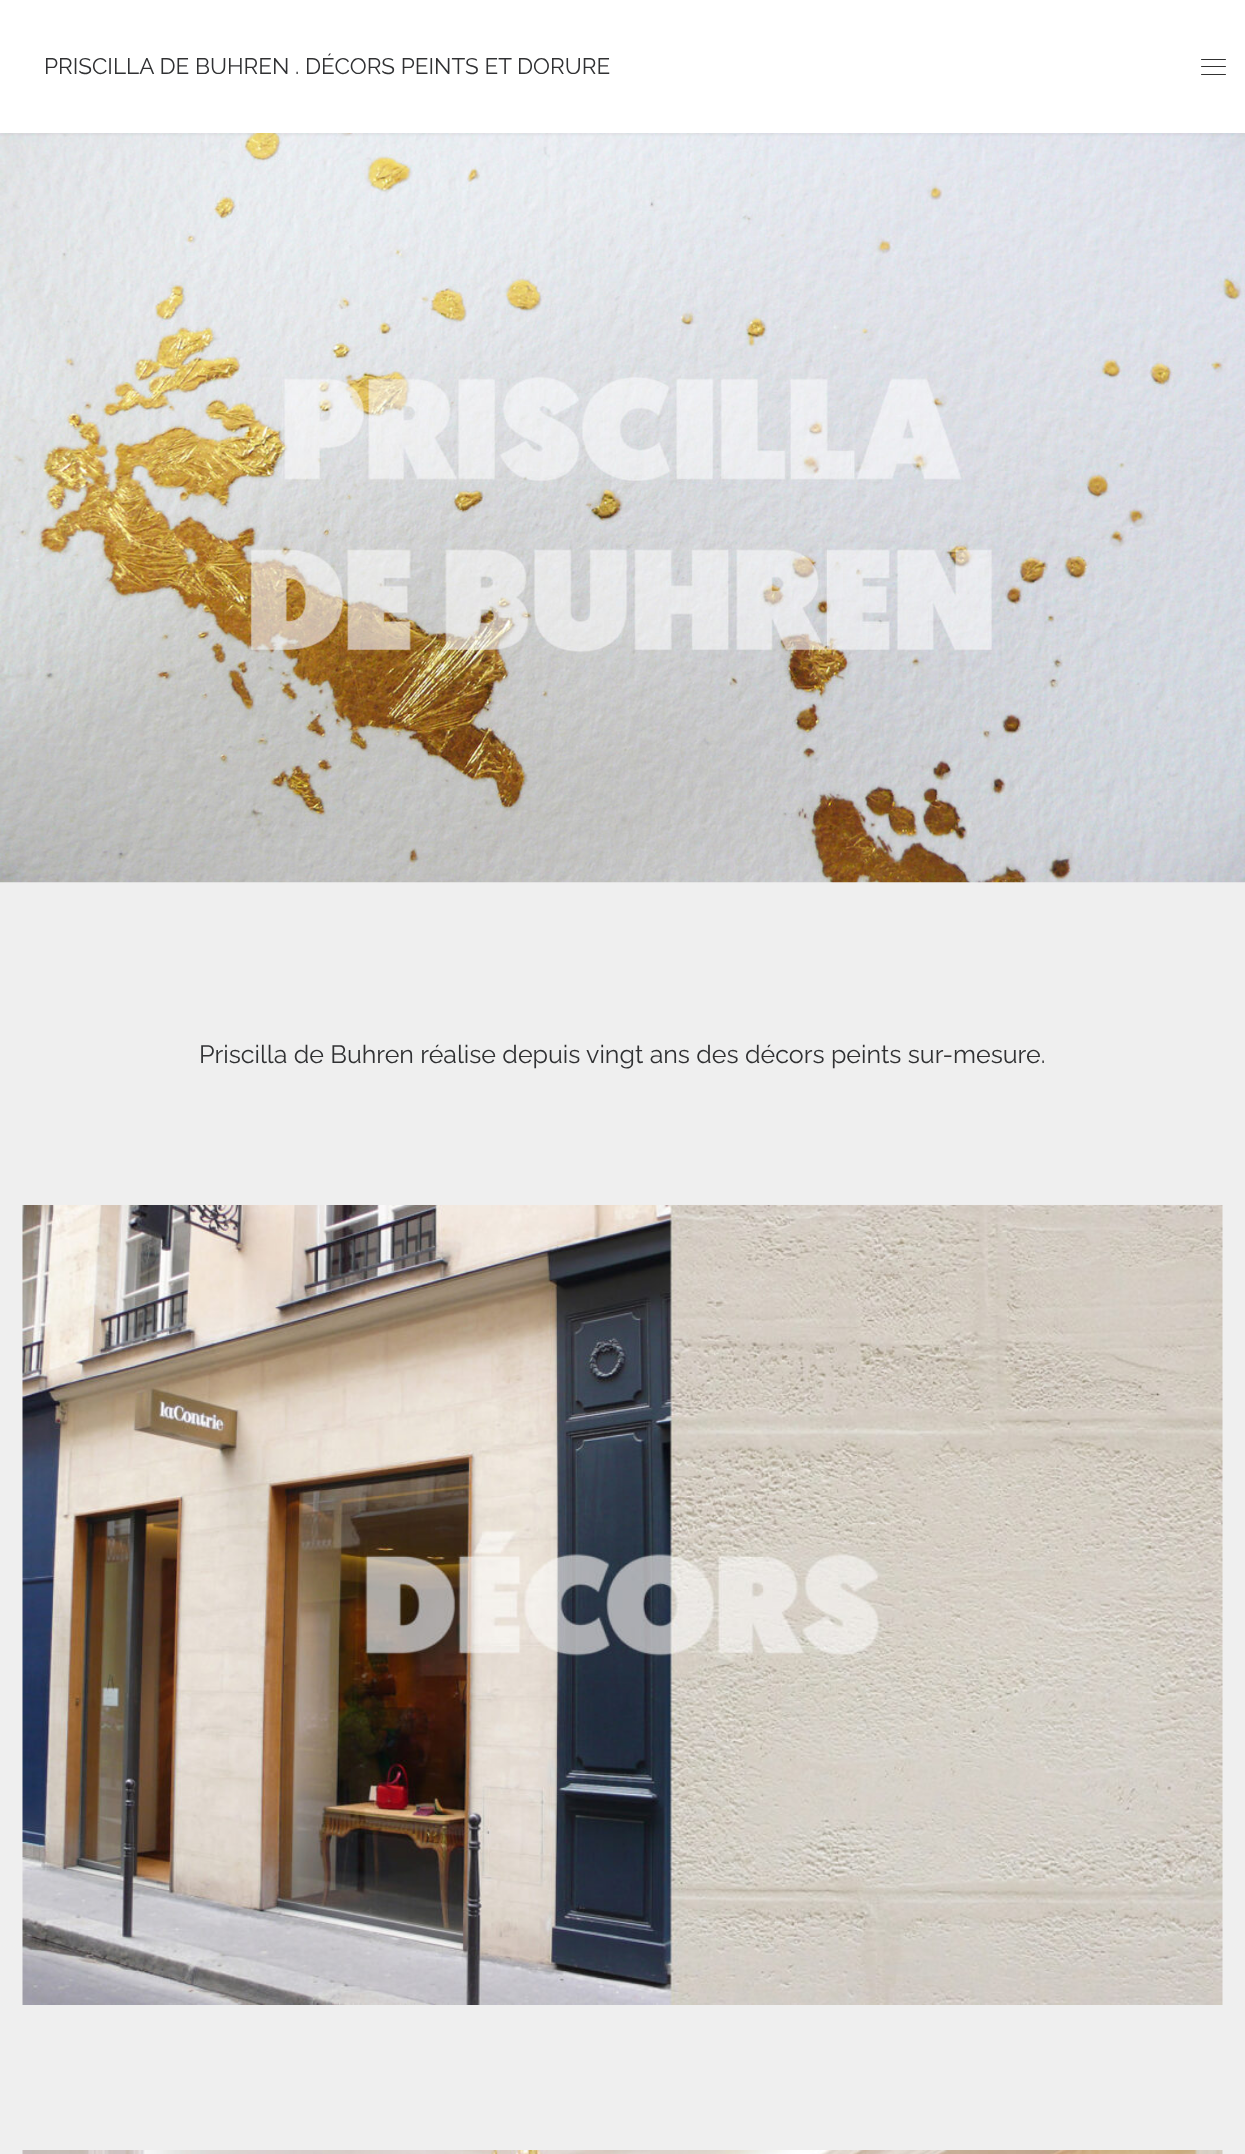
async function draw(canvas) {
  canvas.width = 1245
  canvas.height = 2154
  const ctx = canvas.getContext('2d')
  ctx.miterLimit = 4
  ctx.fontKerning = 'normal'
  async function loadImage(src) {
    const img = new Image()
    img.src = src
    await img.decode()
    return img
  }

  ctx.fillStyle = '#efefef'
  ctx.fillRect(0, 0, 1245, 2154)
  ctx.drawImage(await loadImage('image0.png'), 0, 133, 1245, 750)
  ctx.fillStyle = '#66666614'
  ctx.filter = 'blur(1px)'
  ctx.beginPath()
  ctx.rect(0, 3, 1245, 132)
  ctx.fill()
  ctx.filter = 'none'
  ctx.fillStyle = '#fff'
  ctx.fillRect(0, 0, 1245, 133)
  ctx.font = '100 22.5px Raleway'
  ctx.fillStyle = '#303133'
  ctx.fillText('PRISCILLA DE BUHREN . DÉCORS PEINTS ET DORURE', 44, 74)
  ctx.fillStyle = '#313131'
  ctx.beginPath()
  ctx.roundRect(1201, 59, 25, 1, 0.5)
  ctx.fill()
  ctx.beginPath()
  ctx.roundRect(1201, 66, 25, 1, 0.5)
  ctx.fill()
  ctx.beginPath()
  ctx.roundRect(1201, 74, 25, 1, 0.5)
  ctx.fill()
  ctx.font = '100 25px Raleway'
  ctx.fillStyle = '#303133'
  ctx.fillText('Priscilla de Buhren réalise depuis vingt ans des décors peints sur-mesure.', 199, 1063)
  ctx.drawImage(await loadImage('image1.png'), 22, 1205, 1201, 800)
  ctx.drawImage(await loadImage('image2.png'), 22, 2150, 1201, 4)
}

draw(document.querySelector('canvas'))
